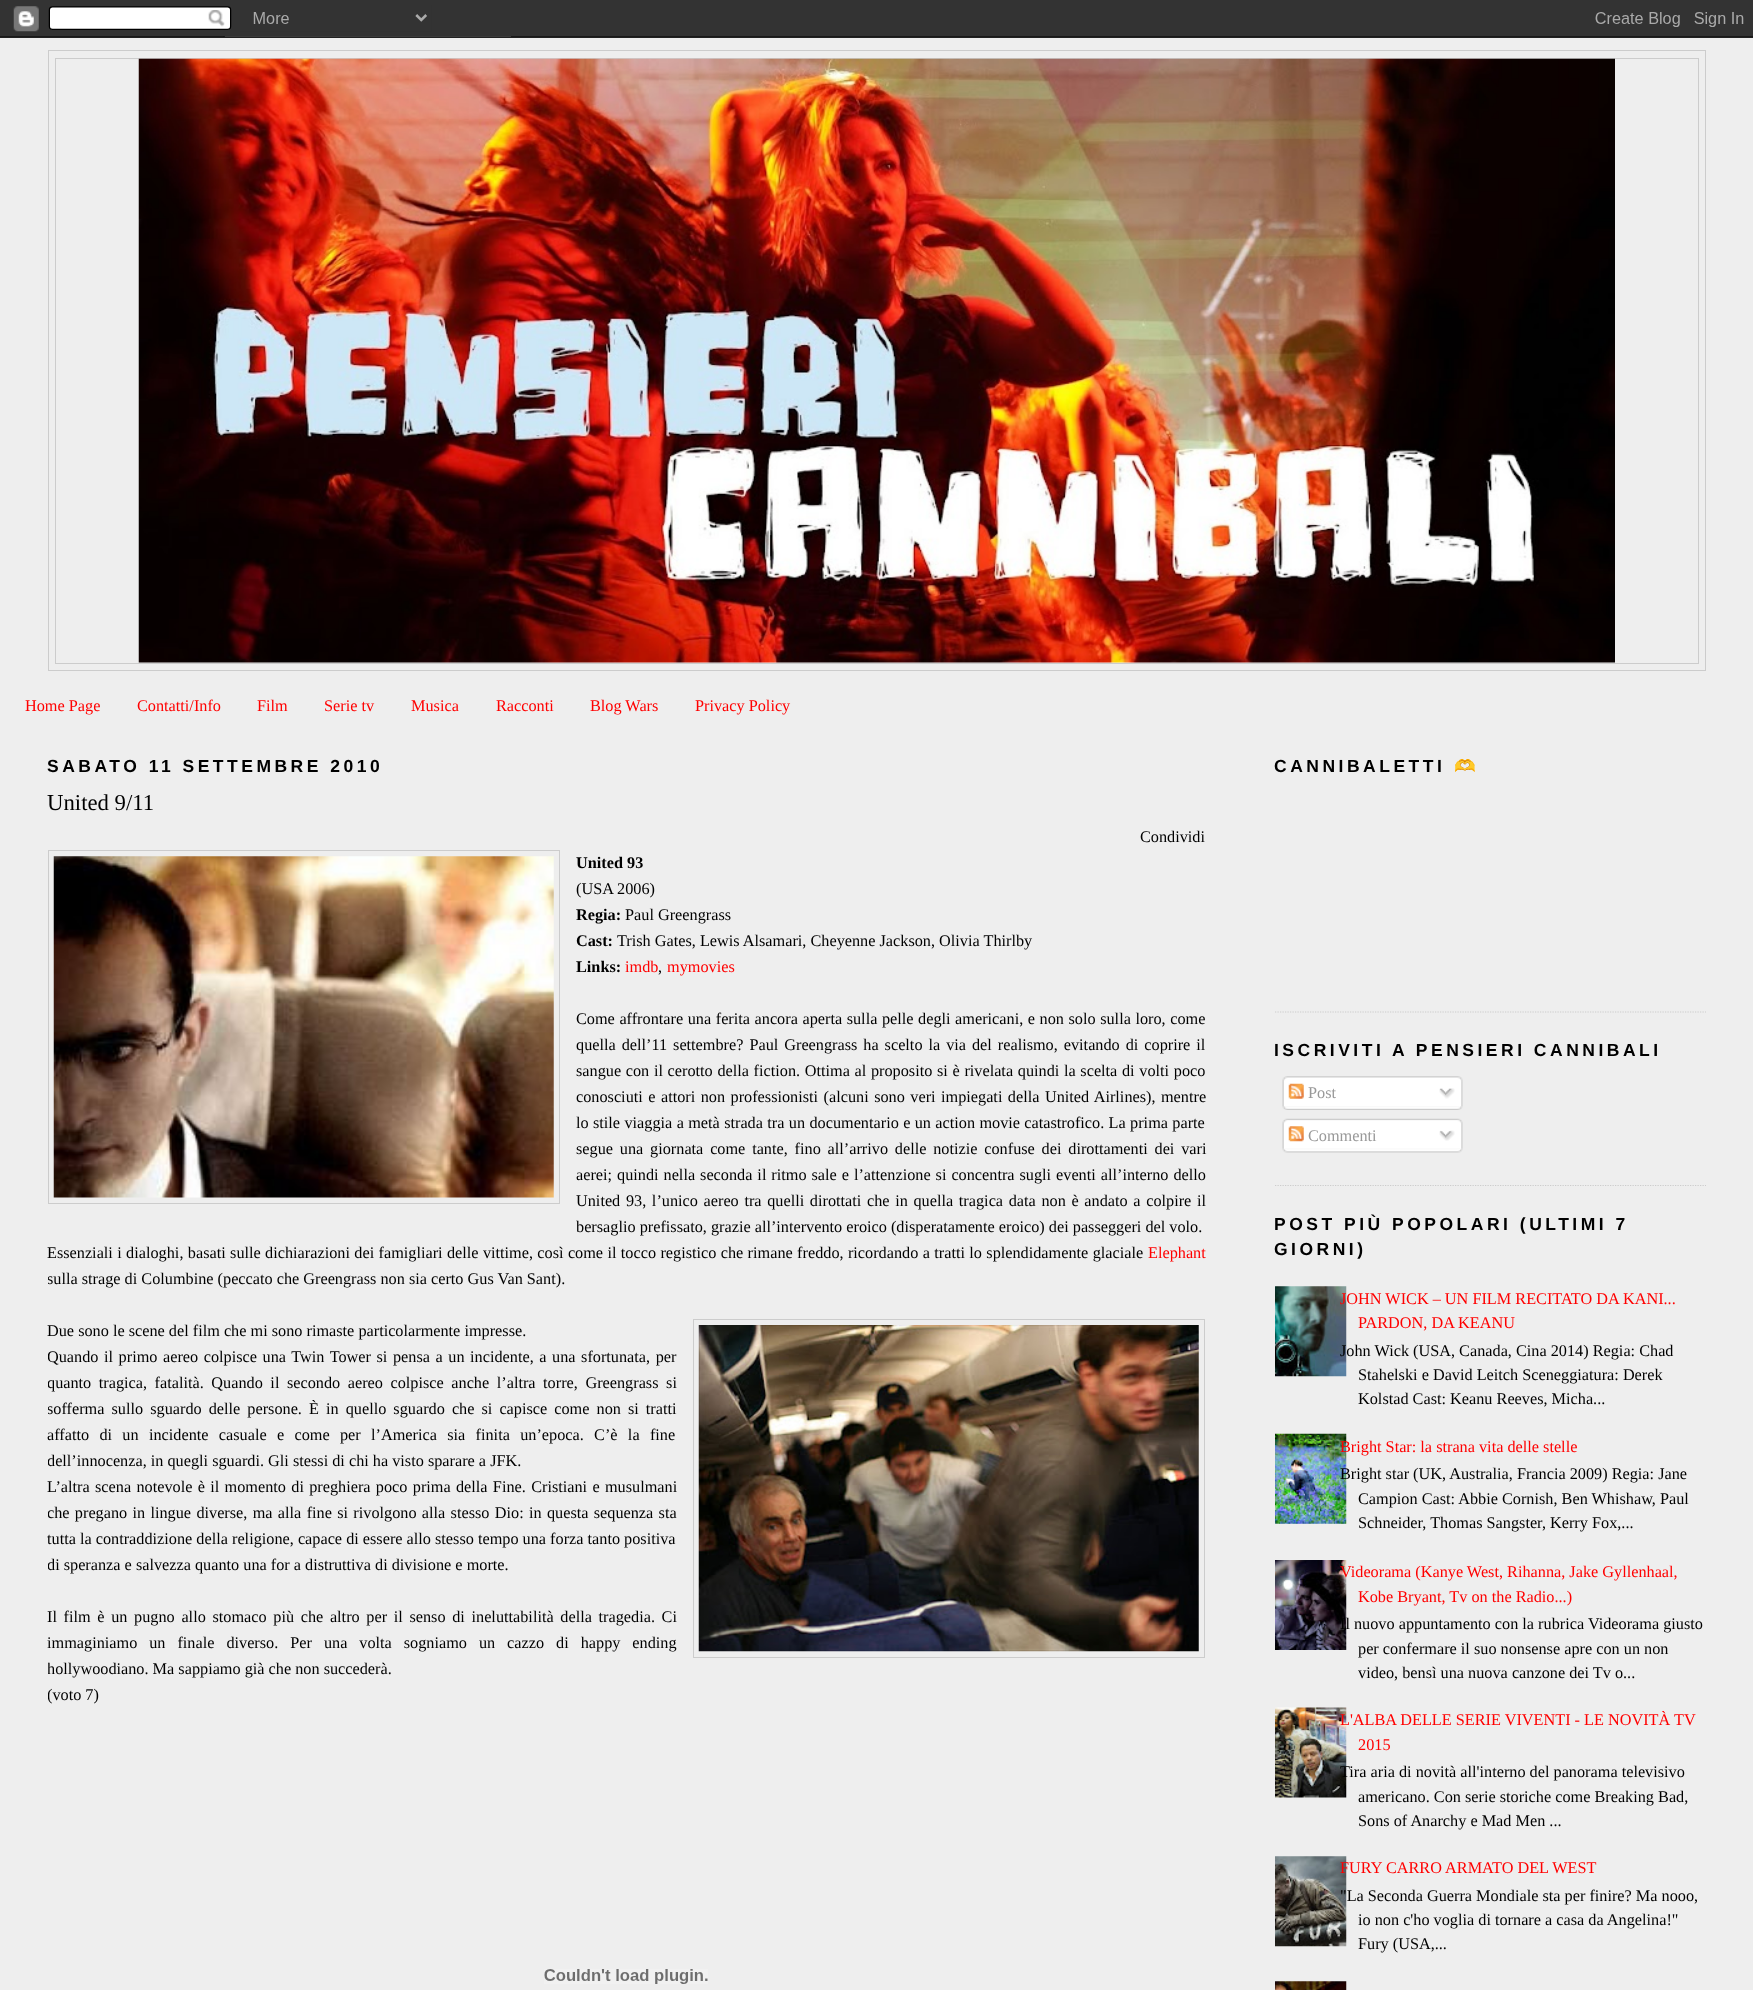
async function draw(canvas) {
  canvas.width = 1753
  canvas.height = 1990
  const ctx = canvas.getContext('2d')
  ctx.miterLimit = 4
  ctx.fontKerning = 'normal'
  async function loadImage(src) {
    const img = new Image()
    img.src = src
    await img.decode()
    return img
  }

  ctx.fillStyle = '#eee'
  ctx.fillRect(0, 0, 1753, 1990)
  ctx.drawImage(await loadImage('image0.png'), 0, 0, 1753, 38)
  ctx.strokeStyle = '#ccc'
  ctx.strokeRect(48.5, 50.5, 1657, 620)
  ctx.strokeRect(55.5, 58.5, 1643, 605)
  ctx.drawImage(await loadImage('image1.png'), 138, 58, 1477, 605)
  ctx.font = '16.25px Liberation Serif'
  ctx.fillStyle = '#f00'
  ctx.fillText('Home Page', 25, 711)
  ctx.fillText('Contatti/Info', 137, 711)
  ctx.fillText('Film', 257, 711)
  ctx.fillText('Serie tv', 324, 711)
  ctx.fillText('Musica', 411, 711)
  ctx.fillText('Racconti', 496, 711)
  ctx.fillText('Blog Wars', 590, 711)
  ctx.fillText('Privacy Policy', 695, 711)
  ctx.letterSpacing = '3.5px'
  ctx.font = 'bold 17.5px Liberation Sans'
  ctx.fillStyle = '#000'
  ctx.fillText('SABATO 11 SETTEMBRE 2010', 47, 772)
  ctx.letterSpacing = '0px'
  ctx.font = '22.75px Liberation Serif'
  ctx.fillText('United 9/11', 47, 810)
  ctx.font = '16.25px Liberation Serif'
  ctx.fillText('Condividi', 1140, 842)
  ctx.strokeRect(48.5, 850.5, 511, 353)
  ctx.drawImage(await loadImage('image2.png'), 53, 856, 501, 342)
  ctx.font = 'bold 16.25px Liberation Serif'
  ctx.fillText('United 93', 576, 868)
  ctx.font = '16.25px Liberation Serif'
  ctx.fillText('(USA 2006)', 576, 894)
  ctx.font = 'bold 16.25px Liberation Serif'
  ctx.fillText('Regia:', 576, 920)
  ctx.font = '16.25px Liberation Serif'
  ctx.fillText('Paul Greengrass', 625, 920)
  ctx.font = 'bold 16.25px Liberation Serif'
  ctx.fillText('Cast:', 576, 946)
  ctx.font = '16.25px Liberation Serif'
  ctx.fillText('Trish Gates, Lewis Alsamari, Cheyenne Jackson, Olivia Thirlby', 617, 946)
  ctx.font = 'bold 16.25px Liberation Serif'
  ctx.fillText('Links:', 576, 972)
  ctx.font = '16.25px Liberation Serif'
  ctx.fillStyle = '#f00'
  ctx.fillText('imdb', 625, 972)
  ctx.fillStyle = '#000'
  ctx.fillText(',', 658, 972)
  ctx.fillStyle = '#f00'
  ctx.fillText('mymovies', 667, 972)
  ctx.wordSpacing = '0.5px'
  ctx.fillStyle = '#000'
  ctx.fillText('Come affrontare una ferita ancora aperta sulla pelle degli americani, e non solo sulla loro, come', 576, 1024)
  ctx.wordSpacing = '1.9px'
  ctx.fillText('quella dell’11 settembre? Paul Greengrass ha scelto la via del realismo, evitando di coprire il', 576, 1050)
  ctx.wordSpacing = '0.6px'
  ctx.fillText('sangue con il cerotto della fiction. Ottima al proposito si è rivelata quindi la scelta di volti poco', 576, 1076)
  ctx.wordSpacing = '1.4px'
  ctx.fillText('conosciuti e attori non professionisti (alcuni sono veri impiegati della United Airlines), mentre', 576, 1102)
  ctx.wordSpacing = '0.3px'
  ctx.fillText('lo stile viaggia a metà strada tra un documentario e un action movie catastrofico. La prima parte', 576, 1128)
  ctx.wordSpacing = '2.75px'
  ctx.fillText('segue una giornata come tante, fino all’arrivo delle notizie confuse dei dirottamenti dei vari', 576, 1154)
  ctx.wordSpacing = '0.9px'
  ctx.fillText('aerei; quindi nella seconda il ritmo sale e l’attenzione si concentra sugli eventi all’interno dello', 576, 1180)
  ctx.wordSpacing = '1.6px'
  ctx.fillText('United 93, l’unico aereo tra quelli dirottati che in quella tragica data non è andato a colpire il', 576, 1206)
  ctx.wordSpacing = '0px'
  ctx.fillText('bersaglio prefissato, grazie all’intervento eroico (disperatamente eroico) dei passeggeri del volo.', 576, 1232)
  ctx.wordSpacing = '0.3px'
  ctx.fillText('Essenziali i dialoghi, basati sulle dichiarazioni dei famigliari delle vittime, così come il tocco registico che rimane freddo, ricordando a tratti lo splendidamente glaciale', 47, 1258)
  ctx.wordSpacing = '0px'
  ctx.fillStyle = '#f00'
  ctx.fillText('Elephant', 1148, 1258)
  ctx.save()
  ctx.beginPath()
  ctx.rect(48, 729, 1157, 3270)
  ctx.clip()
  ctx.fillStyle = '#000'
  ctx.fillText('sulla strage di Columbine (peccato che Greengrass non sia certo Gus Van Sant).', 47, 1284)
  ctx.restore()
  ctx.fillStyle = '#000'
  ctx.fillText('Due sono le scene del film che mi sono rimaste particolarmente impresse.', 47, 1336)
  ctx.strokeRect(693.5, 1319.5, 511, 338)
  ctx.drawImage(await loadImage('image3.png'), 698, 1325, 501, 327)
  ctx.save()
  ctx.beginPath()
  ctx.rect(48, 729, 1157, 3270)
  ctx.clip()
  ctx.wordSpacing = '1.5px'
  ctx.fillText('Quando il primo aereo colpisce una Twin Tower si pensa a un incidente, a una sfortunata, per', 47, 1362)
  ctx.wordSpacing = '3.5px'
  ctx.fillText('quanto tragica, fatalità. Quando il secondo aereo colpisce anche l’altra torre, Greengrass si', 47, 1388)
  ctx.wordSpacing = '3px'
  ctx.fillText('sofferma sullo sguardo delle persone. È in quello sguardo che si capisce come non si tratti', 47, 1414)
  ctx.restore()
  ctx.wordSpacing = '6.25px'
  ctx.fillText('affatto di un incidente casuale e come per l’America sia finita un’epoca. C’è la fine', 47, 1440)
  ctx.save()
  ctx.beginPath()
  ctx.rect(48, 729, 1157, 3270)
  ctx.clip()
  ctx.wordSpacing = '0px'
  ctx.fillText('dell’innocenza, in quegli sguardi. Gli stessi di chi ha visto sparare a JFK.', 47, 1466)
  ctx.restore()
  ctx.wordSpacing = '1.25px'
  ctx.fillText('L’altra scena notevole è il momento di preghiera poco prima della Fine. Cristiani e musulmani', 47, 1492)
  ctx.save()
  ctx.beginPath()
  ctx.rect(48, 729, 1157, 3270)
  ctx.clip()
  ctx.fillText('che pregano in lingue diverse, ma alla fine si rivolgono alla stesso Dio: in questa sequenza sta', 47, 1518)
  ctx.restore()
  ctx.wordSpacing = '0px'
  ctx.fillText('tutta la contraddizione della religione, capace di essere allo stesso tempo una forza tanto positiva', 47, 1544)
  ctx.save()
  ctx.beginPath()
  ctx.rect(48, 729, 1157, 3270)
  ctx.clip()
  ctx.fillText('di speranza e salvezza quanto una for a distruttiva di divisione e morte.', 47, 1570)
  ctx.restore()
  ctx.wordSpacing = '2.6px'
  ctx.fillText('Il film è un pugno allo stomaco più che altro per il senso di ineluttabilità della tragedia. Ci', 47, 1622)
  ctx.wordSpacing = '7.9px'
  ctx.fillText('immaginiamo un finale diverso. Per una volta sogniamo un cazzo di happy ending', 47, 1648)
  ctx.save()
  ctx.beginPath()
  ctx.rect(48, 729, 1157, 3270)
  ctx.clip()
  ctx.wordSpacing = '0px'
  ctx.fillText('hollywoodiano. Ma sappiamo già che non succederà.', 47, 1674)
  ctx.fillText('(voto 7)', 47, 1700)
  ctx.restore()
  ctx.drawImage(await loadImage('image4.png'), 544, 1969, 164, 15)
  ctx.beginPath()
  ctx.moveTo(1275, 1012)
  ctx.lineTo(1706, 1012)
  ctx.lineWidth = 1.2
  ctx.setLineDash([1.25, 1.25])
  ctx.stroke()
  ctx.letterSpacing = '3.5px'
  ctx.wordSpacing = '0px'
  ctx.font = 'bold 17.5px Liberation Sans'
  ctx.fillText('CANNIBALETTI', 1274, 772)
  ctx.font = 'bold 17.5px Noto Color Emoji'
  ctx.fillText('🫶', 1454, 772)
  ctx.beginPath()
  ctx.moveTo(1275, 1185.5)
  ctx.lineTo(1706, 1185.5)
  ctx.stroke()
  ctx.font = 'bold 17.5px Liberation Sans'
  ctx.fillText('ISCRIVITI A PENSIERI CANNIBALI', 1274, 1056)
  ctx.drawImage(await loadImage('image5.png'), 1282, 1076, 181, 31)
  ctx.drawImage(await loadImage('image6.png'), 1288, 1083, 16, 16)
  ctx.letterSpacing = '0px'
  ctx.font = '16.25px Liberation Serif'
  ctx.fillStyle = '#999'
  ctx.fillText('Post', 1308, 1098)
  ctx.drawImage(await loadImage('image7.png'), 1439, 1088, 16, 11)
  ctx.drawImage(await loadImage('image8.png'), 1282, 1106, 181, 4)
  ctx.drawImage(await loadImage('image9.png'), 1282, 1118, 181, 31)
  ctx.drawImage(await loadImage('image10.png'), 1288, 1126, 16, 16)
  ctx.fillText('Commenti', 1308, 1141)
  ctx.drawImage(await loadImage('image11.png'), 1439, 1130, 16, 11)
  ctx.drawImage(await loadImage('image12.png'), 1282, 1149, 181, 4)
  ctx.letterSpacing = '3.5px'
  ctx.font = 'bold 17.5px Liberation Sans'
  ctx.fillStyle = '#000'
  ctx.fillText('POST PIÙ POPOLARI (ULTIMI 7', 1274, 1230)
  ctx.fillText('GIORNI)', 1274, 1255)
  ctx.drawImage(await loadImage('image13.png'), 1275, 1286, 72, 91)
  ctx.letterSpacing = '0px'
  ctx.font = '16.25px Liberation Serif'
  ctx.fillStyle = '#f00'
  ctx.fillText('JOHN WICK – UN FILM RECITATO DA KANI...', 1340, 1304)
  ctx.fillText('PARDON, DA KEANU', 1358, 1328)
  ctx.fillStyle = '#000'
  ctx.fillText('John Wick (USA, Canada, Cina 2014) Regia: Chad', 1340, 1356)
  ctx.fillText('Stahelski e David Leitch Sceneggiatura: Derek', 1358, 1380)
  ctx.fillText('Kolstad Cast: Keanu Reeves, Micha...', 1358, 1404)
  ctx.drawImage(await loadImage('image14.png'), 1275, 1433, 72, 91)
  ctx.fillStyle = '#f00'
  ctx.fillText('Bright Star: la strana vita delle stelle', 1340, 1452)
  ctx.fillStyle = '#000'
  ctx.fillText('Bright star (UK, Australia, Francia 2009) Regia: Jane', 1340, 1479)
  ctx.fillText('Campion Cast: Abbie Cornish, Ben Whishaw, Paul', 1358, 1504)
  ctx.fillText('Schneider, Thomas Sangster, Kerry Fox,...', 1358, 1528)
  ctx.drawImage(await loadImage('image15.png'), 1275, 1560, 72, 90)
  ctx.fillStyle = '#f00'
  ctx.fillText('Videorama (Kanye West, Rihanna, Jake Gyllenhaal,', 1340, 1577)
  ctx.fillText('Kobe Bryant, Tv on the Radio...)', 1358, 1602)
  ctx.fillStyle = '#000'
  ctx.fillText('Il nuovo appuntamento con la rubrica Videorama giusto', 1340, 1629)
  ctx.fillText('per confermare il suo nonsense apre con un non', 1358, 1654)
  ctx.fillText('video, bensì una nuova canzone dei Tv o...', 1358, 1678)
  ctx.drawImage(await loadImage('image16.png'), 1275, 1707, 72, 91)
  ctx.fillStyle = '#f00'
  ctx.fillText('L\'ALBA DELLE SERIE VIVENTI - LE NOVITÀ TV', 1340, 1725)
  ctx.fillText('2015', 1358, 1750)
  ctx.fillStyle = '#000'
  ctx.fillText('Tira aria di novità all\'interno del panorama televisivo', 1340, 1777)
  ctx.fillText('americano. Con serie storiche come Breaking Bad,', 1358, 1802)
  ctx.fillText('Sons of Anarchy e Mad Men ...', 1358, 1826)
  ctx.drawImage(await loadImage('image17.png'), 1275, 1856, 72, 91)
  ctx.fillStyle = '#f00'
  ctx.fillText('FURY CARRO ARMATO DEL WEST', 1340, 1873)
  ctx.fillStyle = '#000'
  ctx.fillText('"La Seconda Guerra Mondiale sta per finire? Ma nooo,', 1340, 1901)
  ctx.fillText('io non c\'ho voglia di tornare a casa da Angelina!"', 1358, 1925)
  ctx.fillText('Fury (USA,...', 1358, 1949)
  ctx.drawImage(await loadImage('image18.png'), 1275, 1981, 72, 9)
}

draw(document.querySelector('canvas'))
